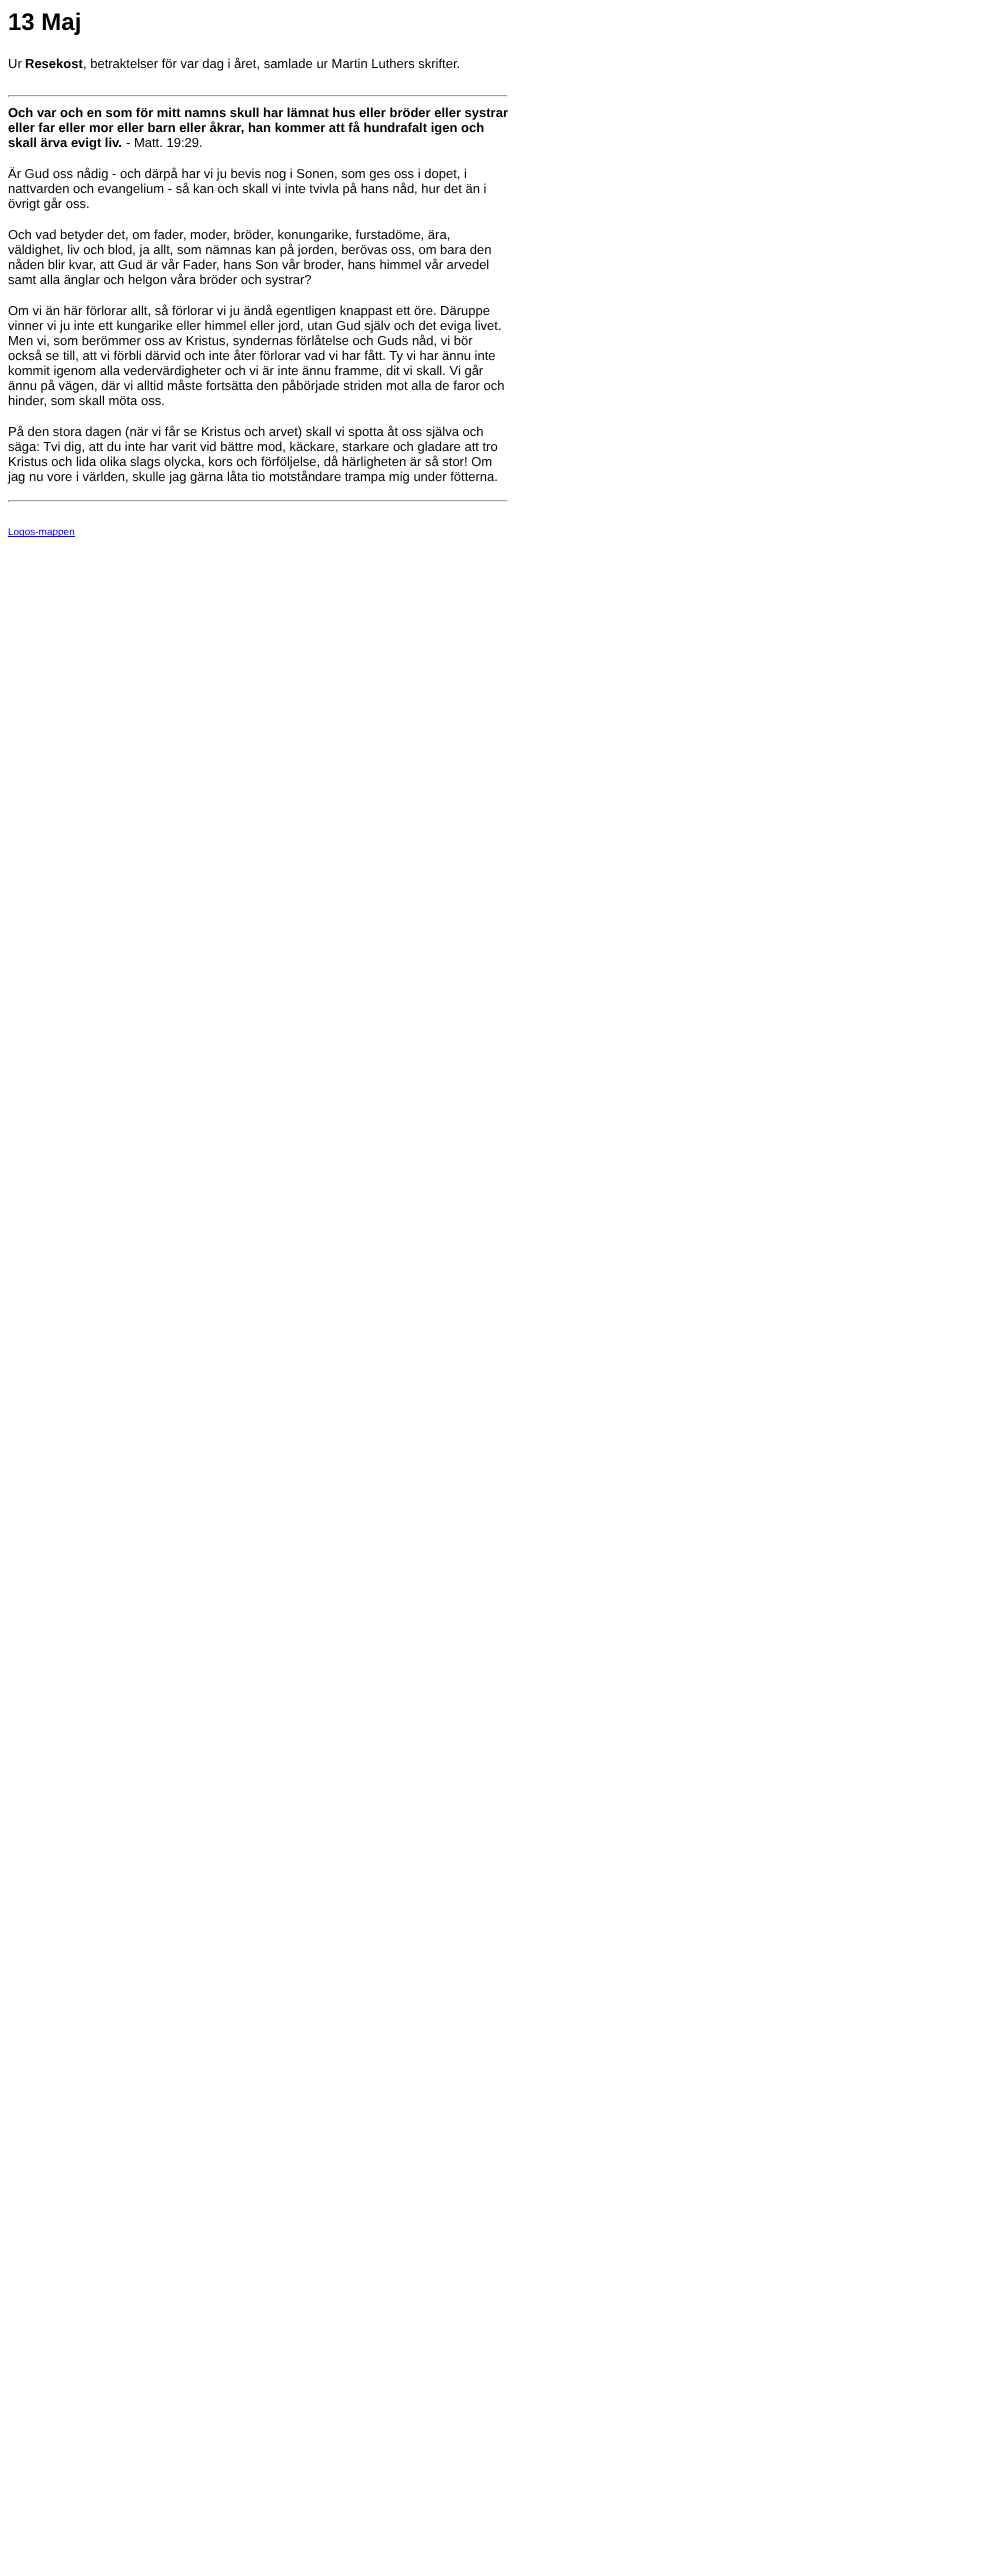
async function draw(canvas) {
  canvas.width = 983
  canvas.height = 2549
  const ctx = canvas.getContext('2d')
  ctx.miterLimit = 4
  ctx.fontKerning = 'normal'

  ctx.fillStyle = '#fff'
  ctx.fillRect(0, 0, 983, 2549)
  ctx.font = 'bold 24px Liberation Sans'
  ctx.fillStyle = '#000'
  ctx.fillText('13 Maj', 8, 30)
  ctx.font = '13px Liberation Sans'
  ctx.fillText('Ur', 8, 68)
  ctx.font = 'bold 13px Liberation Sans'
  ctx.fillText('Resekost', 25, 68)
  ctx.font = '13px Liberation Sans'
  ctx.fillText(', betraktelser för var dag i året, samlade ur Martin Luthers skrifter.', 83, 68)
  ctx.fillStyle = '#9f9f9f'
  ctx.fillRect(8, 95, 500, 1)
  ctx.fillStyle = '#eee'
  ctx.fillRect(507, 95, 1, 2)
  ctx.fillRect(8, 96, 500, 1)
  ctx.fillStyle = '#9f9f9f'
  ctx.fillRect(8, 95, 1, 2)
  ctx.font = 'bold 13px Liberation Sans'
  ctx.fillStyle = '#000'
  ctx.fillText('Och var och en som för mitt namns skull har lämnat hus eller bröder eller systrar', 8, 117)
  ctx.fillText('eller far eller mor eller barn eller åkrar, han kommer att få hundrafalt igen och', 8, 132)
  ctx.fillText('skall ärva evigt liv.', 8, 147)
  ctx.font = '13px Liberation Sans'
  ctx.fillText('- Matt. 19:29.', 126, 147)
  ctx.fillText('Är Gud oss nådig - och därpå har vi ju bevis nog i Sonen, som ges oss i dopet, i', 8, 178)
  ctx.fillText('nattvarden och evangelium - så kan och skall vi inte tvivla på hans nåd, hur det än i', 8, 193)
  ctx.fillText('övrigt går oss.', 8, 208)
  ctx.fillText('Och vad betyder det, om fader, moder, bröder, konungarike, furstadöme, ära,', 8, 239)
  ctx.fillText('väldighet, liv och blod, ja allt, som nämnas kan på jorden, berövas oss, om bara den', 8, 254)
  ctx.fillText('nåden blir kvar, att Gud är vår Fader, hans Son vår broder, hans himmel vår arvedel', 8, 269)
  ctx.fillText('samt alla änglar och helgon våra bröder och systrar?', 8, 284)
  ctx.fillText('Om vi än här förlorar allt, så förlorar vi ju ändå egentligen knappast ett öre. Däruppe', 8, 315)
  ctx.fillText('vinner vi ju inte ett kungarike eller himmel eller jord, utan Gud själv och det eviga livet.', 8, 330)
  ctx.fillText('Men vi, som berömmer oss av Kristus, syndernas förlåtelse och Guds nåd, vi bör', 8, 345)
  ctx.fillText('också se till, att vi förbli därvid och inte åter förlorar vad vi har fått. Ty vi har ännu inte', 8, 360)
  ctx.fillText('kommit igenom alla vedervärdigheter och vi är inte ännu framme, dit vi skall. Vi går', 8, 375)
  ctx.fillText('ännu på vägen, där vi alltid måste fortsätta den påbörjade striden mot alla de faror och', 8, 390)
  ctx.fillText('hinder, som skall möta oss.', 8, 405)
  ctx.fillText('På den stora dagen (när vi får se Kristus och arvet) skall vi spotta åt oss själva och', 8, 436)
  ctx.fillText('säga: Tvi dig, att du inte har varit vid bättre mod, käckare, starkare och gladare att tro', 8, 451)
  ctx.fillText('Kristus och lida olika slags olycka, kors och förföljelse, då härligheten är så stor! Om', 8, 466)
  ctx.fillText('jag nu vore i världen, skulle jag gärna låta tio motståndare trampa mig under fötterna.', 8, 481)
  ctx.fillStyle = '#9f9f9f'
  ctx.fillRect(8, 500, 500, 1)
  ctx.fillStyle = '#eee'
  ctx.fillRect(507, 500, 1, 2)
  ctx.fillRect(8, 501, 500, 1)
  ctx.fillStyle = '#9f9f9f'
  ctx.fillRect(8, 500, 1, 2)
  ctx.fillStyle = '#00e'
  ctx.fillRect(8, 536, 67, 1)
  ctx.font = '10px Liberation Sans'
  ctx.fillText('Logos-mappen', 8, 535)
}

draw(document.querySelector('canvas'))
